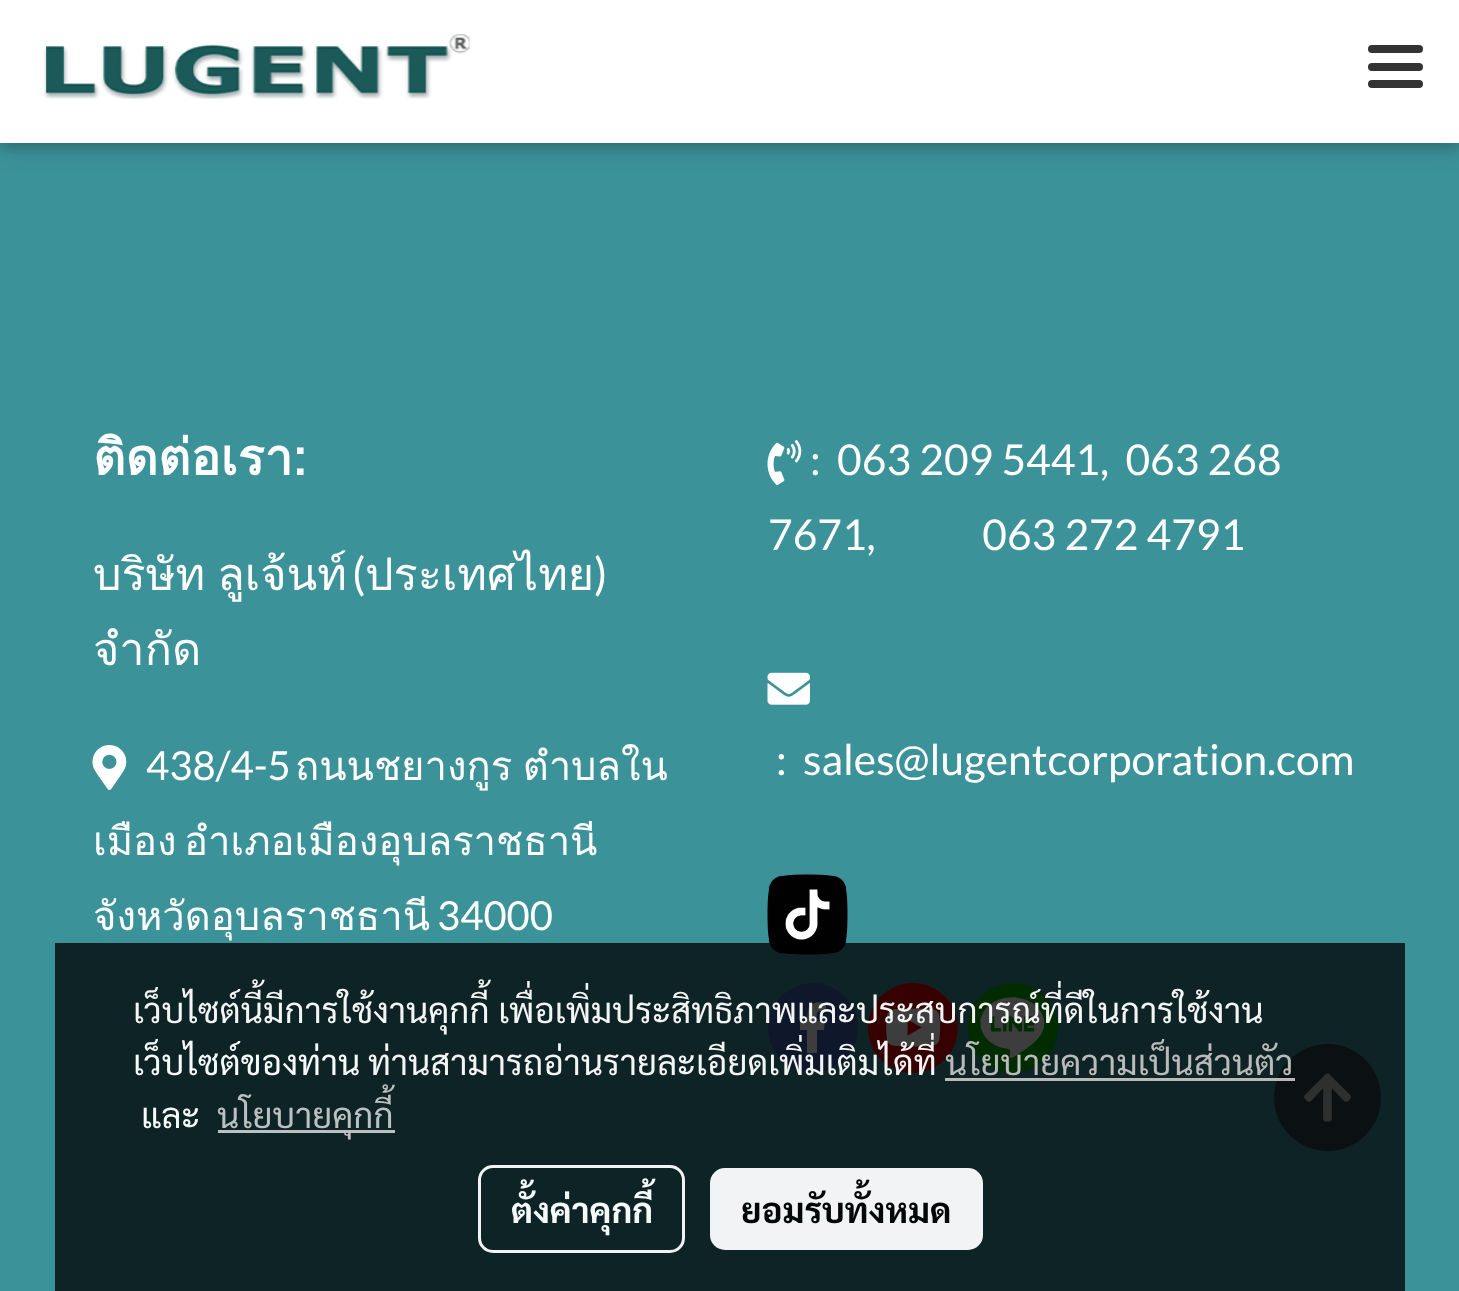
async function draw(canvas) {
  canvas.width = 1459
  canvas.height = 1291
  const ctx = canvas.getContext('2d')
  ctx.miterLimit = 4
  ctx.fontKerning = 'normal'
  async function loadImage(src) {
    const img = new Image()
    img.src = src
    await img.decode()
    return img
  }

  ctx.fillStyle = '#3c9299'
  ctx.fillRect(0, 0, 1459, 1291)
  ctx.fillStyle = '#0000001f'
  ctx.filter = 'blur(12.5px)'
  ctx.beginPath()
  ctx.rect(0, 5, 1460, 143)
  ctx.fill()
  ctx.filter = 'none'
  ctx.fillStyle = '#00000029'
  ctx.filter = 'blur(6px)'
  ctx.beginPath()
  ctx.rect(0, 5, 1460, 143)
  ctx.fill()
  ctx.filter = 'none'
  ctx.fillStyle = '#fff'
  ctx.fillRect(0, 0, 1459, 143)
  ctx.drawImage(await loadImage('image0.png'), 43, 34, 427, 65)
  ctx.fillStyle = '#333'
  ctx.beginPath()
  ctx.roundRect(1368, 63, 55, 8, 4)
  ctx.fill()
  ctx.beginPath()
  ctx.roundRect(1368, 45, 55, 8, 4)
  ctx.fill()
  ctx.beginPath()
  ctx.roundRect(1368, 80, 55, 8, 4)
  ctx.fill()
  ctx.font = 'bold 50px Loma'
  ctx.fillStyle = '#fff'
  ctx.fillText('ติดต่อเรา:', 93, 475)
  ctx.wordSpacing = '-3px'
  ctx.font = '45px Loma'
  ctx.fillText('บริษัท ลูเจ้นท์', 93, 590)
  ctx.wordSpacing = '0px'
  ctx.font = '45px Lato'
  ctx.fillText('(', 352, 590)
  ctx.font = '45px Loma'
  ctx.fillText('ประเทศไทย', 365, 590)
  ctx.font = '45px Lato'
  ctx.fillText(')', 594, 590)
  ctx.font = '45px Loma'
  ctx.fillText('จำกัด', 93, 665)
  ctx.drawImage(await loadImage('image1.png'), 92, 745, 35, 45)
  ctx.font = '40px Lato'
  ctx.fillText('438/4-5', 146, 780)
  ctx.wordSpacing = '-3px'
  ctx.font = '40px Loma'
  ctx.fillText('ถนนชยางกูร ตำบลใน', 295, 780)
  ctx.wordSpacing = '-6px'
  ctx.fillText('เมือง อำเภอเมืองอุบลราชธานี', 93, 855)
  ctx.wordSpacing = '0px'
  ctx.fillText('จังหวัดอุบลราชธานี', 93, 930)
  ctx.font = '40px Lato'
  ctx.fillText('34000', 437, 930)
  ctx.drawImage(await loadImage('image2.png'), 767, 440, 35, 45)
  ctx.font = '42.5px Lato'
  ctx.fillText(':  063 209 5441,  063 268', 810, 475)
  ctx.fillText('7671,             063 272 4791', 768, 550)
  ctx.drawImage(await loadImage('image3.png'), 767, 672, 43, 33)
  ctx.fillText(':', 776, 775)
  ctx.fillText('sales@lugentcorporation.com', 803, 775)
  ctx.drawImage(await loadImage('image4.png'), 767, 874, 81, 81)
  ctx.fillStyle = '#4267b2'
  ctx.beginPath()
  ctx.arc(813, 1028, 45, 0, 2 * Math.PI)
  ctx.fill()
  ctx.fillStyle = '#fff'
  ctx.beginPath()
  ctx.moveTo(807, 1053)
  ctx.lineTo(807, 1030)
  ctx.lineTo(800, 1030)
  ctx.lineTo(800, 1021)
  ctx.lineTo(807, 1021)
  ctx.lineTo(808, 1011)
  ctx.bezierCurveTo(809, 1002, 818, 1002, 826, 1003)
  ctx.lineTo(826, 1011)
  ctx.bezierCurveTo(815, 1011, 817, 1011, 817, 1021)
  ctx.lineTo(825, 1021)
  ctx.lineTo(824, 1030)
  ctx.lineTo(817, 1030)
  ctx.lineTo(817, 1053)
  ctx.fill()
  ctx.fillStyle = '#eb0808'
  ctx.beginPath()
  ctx.arc(913, 1028, 45, 0, 2 * Math.PI)
  ctx.fill()
  ctx.drawImage(await loadImage('image5.png'), 886, 1008, 55, 39)
  ctx.fillStyle = '#00b800'
  ctx.beginPath()
  ctx.arc(1013, 1028, 45, 0, 2 * Math.PI)
  ctx.fill()
  ctx.drawImage(await loadImage('image6.png'), 980, 983, 65, 88)
  ctx.fillStyle = '#30494b'
  ctx.beginPath()
  ctx.moveTo(1328, 1044)
  ctx.bezierCurveTo(1298, 1044, 1274, 1068, 1274, 1098)
  ctx.bezierCurveTo(1274, 1127, 1298, 1151, 1328, 1151)
  ctx.bezierCurveTo(1357, 1151, 1381, 1127, 1381, 1098)
  ctx.bezierCurveTo(1381, 1068, 1357, 1044, 1328, 1044)
  ctx.closePath()
  ctx.fill()
  ctx.drawImage(await loadImage('image7.png'), 1304, 1073, 47, 49)
  ctx.fillStyle = '#000000c2'
  ctx.fillRect(55, 943, 1350, 348)
  ctx.font = '35px Sarabun'
  ctx.fillStyle = '#f3f4f4'
  ctx.fillText('เว็บไซต์นี้มีการใช้งานคุกกี้ เพื่อเพิ่มประสิทธิภาพและประสบการณ์ที่ดีในการใช้งาน', 133, 1023)
  ctx.fillStyle = '#f5fafa'
  ctx.fillText('เว็บไซต์ของท่าน', 133, 1075)
  ctx.fillStyle = '#f3f4f4'
  ctx.fillText('ท่านสามารถอ่านรายละเอียดเพิ่มเติมได้ที่', 368, 1075)
  ctx.fillStyle = '#b9baba'
  ctx.fillText('นโยบายความเป็นส่วนตัว', 945, 1075)
  ctx.fillStyle = '#c2c2c2f2'
  ctx.fillRect(945, 1078, 350, 3)
  ctx.fillStyle = '#f5fafa'
  ctx.fillText('และ', 141, 1128)
  ctx.fillStyle = '#bbc0c0'
  ctx.fillRect(218, 1130, 177, 3)
  ctx.fillText('นโยบายคุกกี้', 217, 1128)
  ctx.beginPath()
  ctx.roundRect(479.5, 1166.5, 204, 85, 13.5)
  ctx.strokeStyle = '#fffffff2'
  ctx.lineWidth = 3
  ctx.stroke()
  ctx.font = 'bold 35px Sarabun'
  ctx.fillStyle = '#f5fafa'
  ctx.fillText('ตั้งค่าคุกกี้', 511, 1223)
  ctx.fillStyle = '#fffffff2'
  ctx.beginPath()
  ctx.roundRect(710, 1168, 273, 82, 15)
  ctx.fill()
  ctx.fillStyle = '#030708'
  ctx.fillText('ยอมรับทั้งหมด', 741, 1223)
}

draw(document.querySelector('canvas'))
